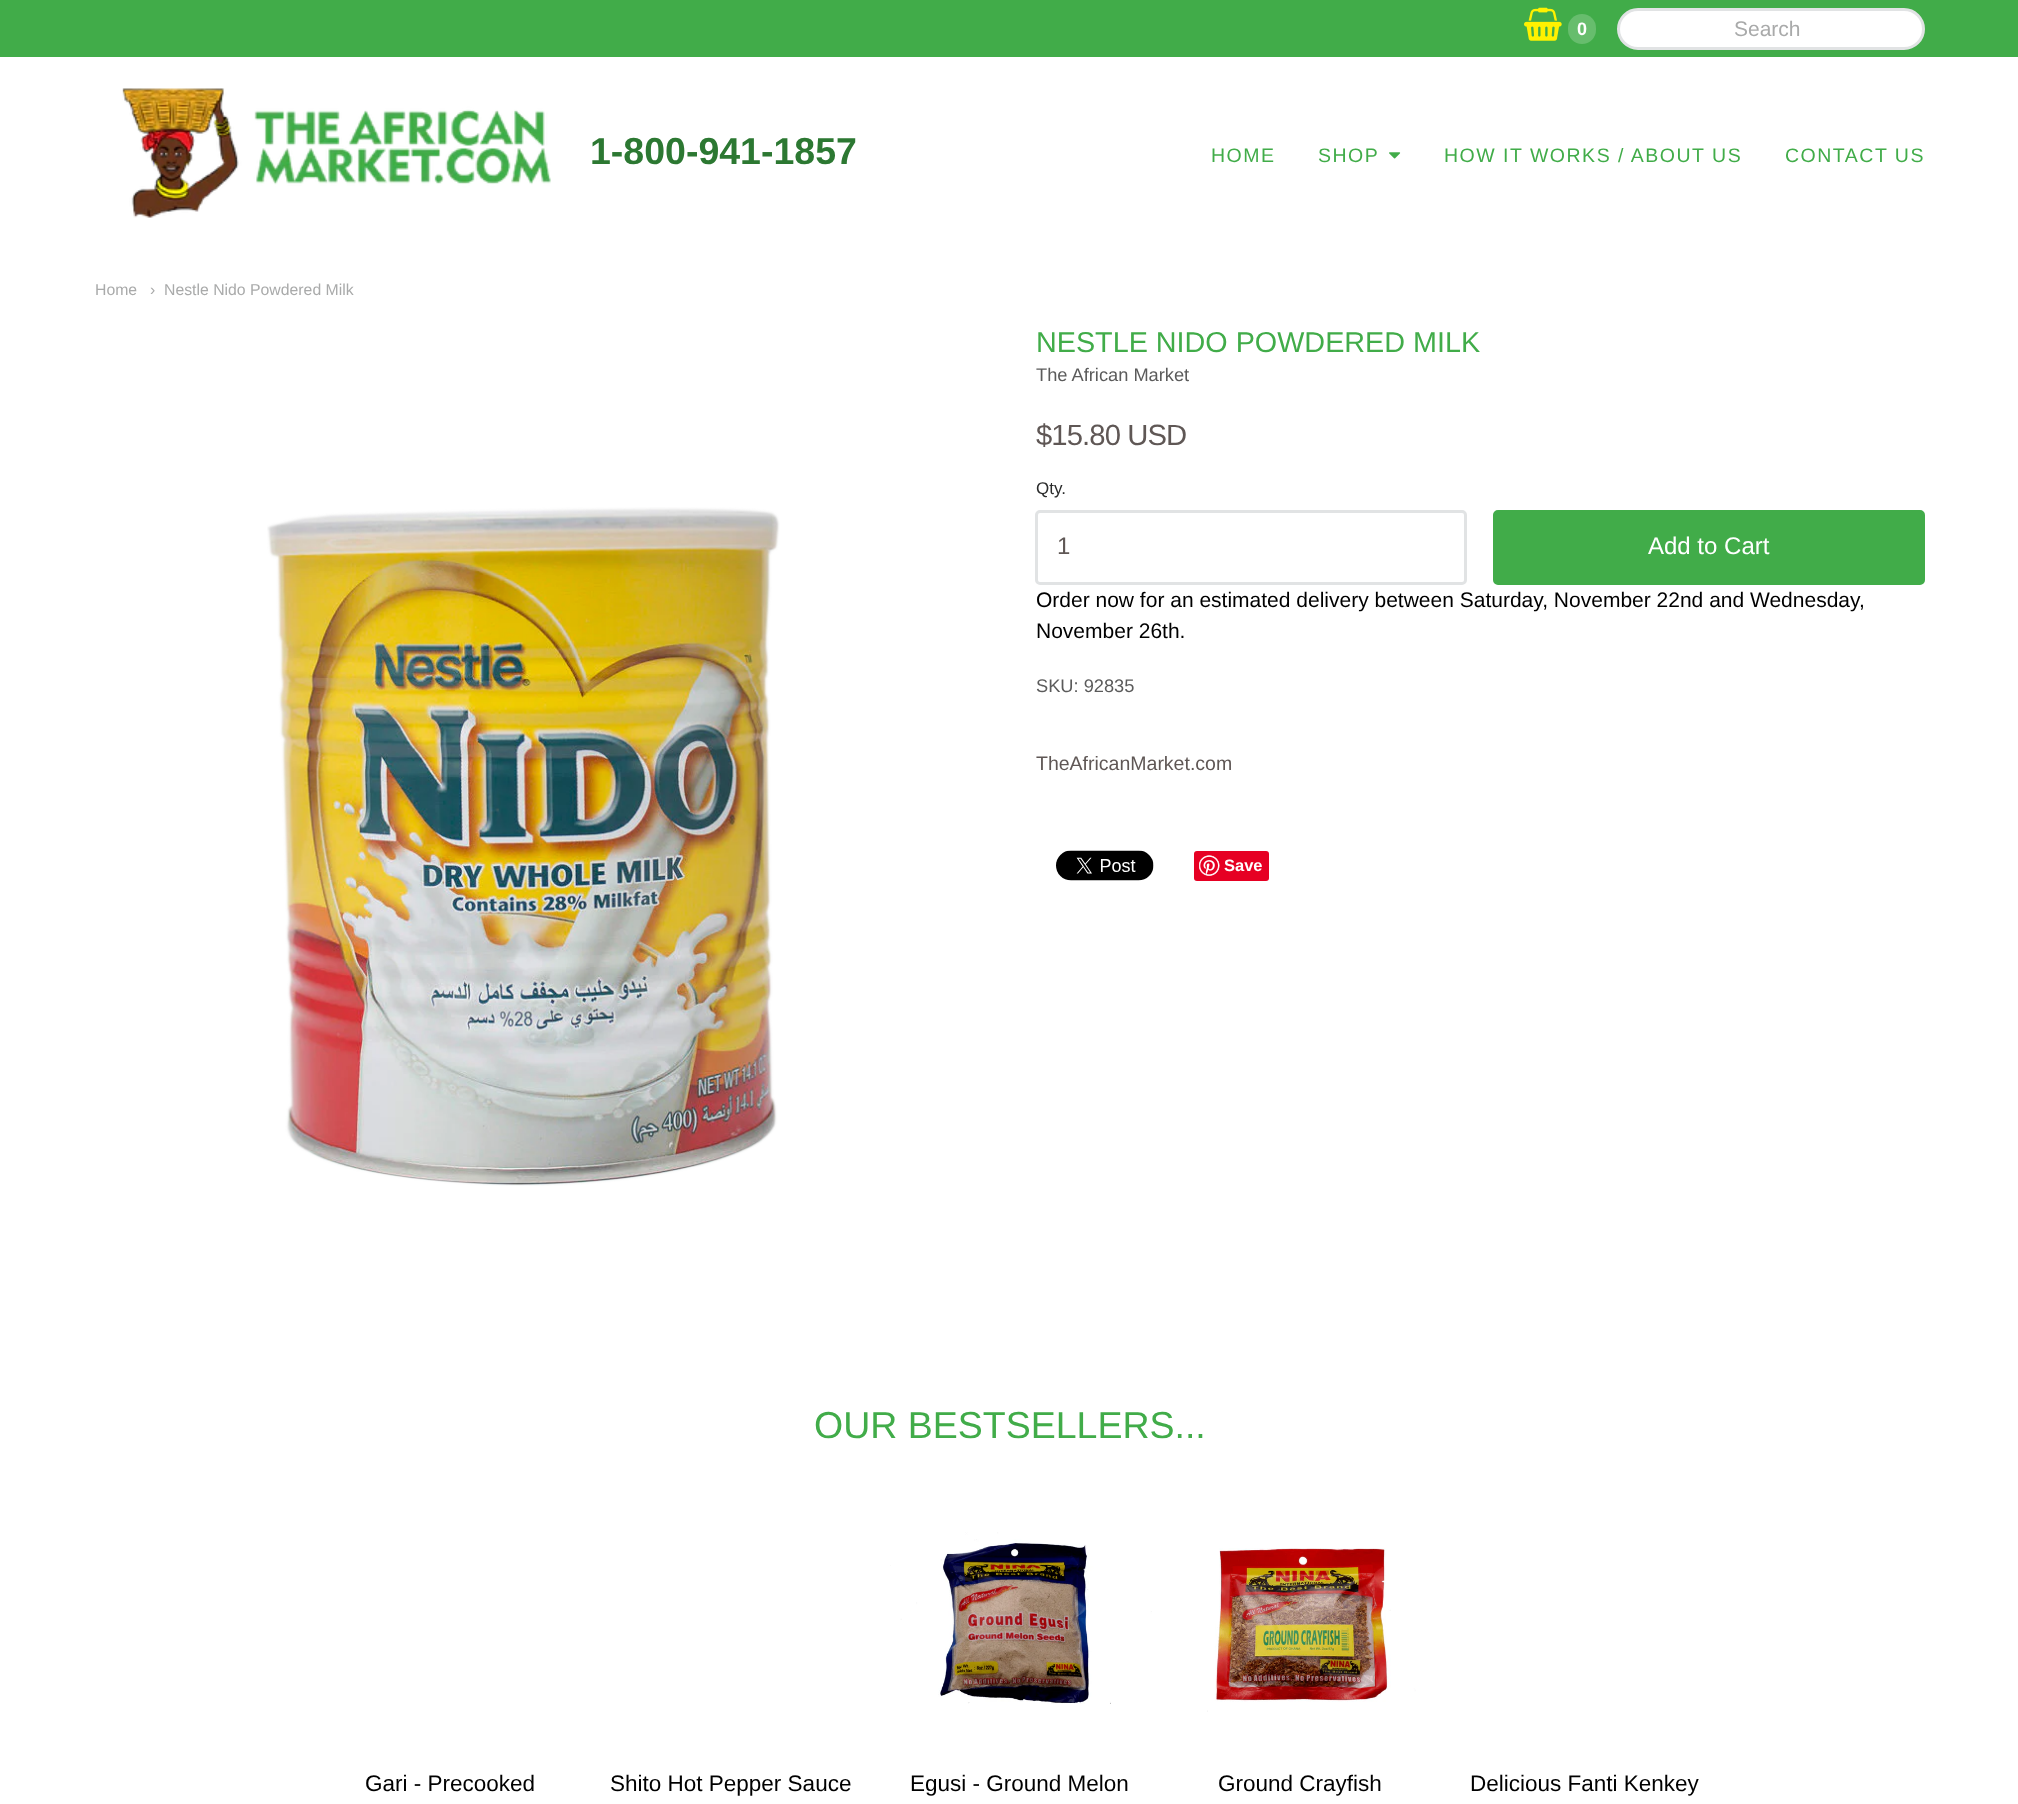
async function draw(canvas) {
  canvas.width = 2018
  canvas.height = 1804
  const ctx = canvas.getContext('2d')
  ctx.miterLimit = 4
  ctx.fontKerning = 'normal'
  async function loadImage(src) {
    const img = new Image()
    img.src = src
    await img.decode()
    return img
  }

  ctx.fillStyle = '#41ac49'
  ctx.fillRect(0, 0, 2018, 1804)
  ctx.drawImage(await loadImage('image0.png'), 1524, 7, 38, 34)
  ctx.fillStyle = '#67bd6d'
  ctx.beginPath()
  ctx.roundRect(1568, 14, 28, 30, 14)
  ctx.fill()
  ctx.font = 'bold 18px Liberation Sans'
  ctx.fillStyle = '#fff'
  ctx.fillText('0', 1577, 35)
  ctx.beginPath()
  ctx.roundRect(1618.5, 9.5, 305, 39, 19.5)
  ctx.fill()
  ctx.strokeStyle = '#e1e3e4'
  ctx.lineWidth = 3
  ctx.stroke()
  ctx.font = '21px Liberation Sans'
  ctx.fillStyle = '#a9aaaa'
  ctx.fillText('Search', 1734, 36)
  ctx.fillStyle = '#fff'
  ctx.fillRect(0, 57, 2018, 1747)
  ctx.drawImage(await loadImage('image1.png'), 122, 88, 429, 130)
  ctx.font = 'bold 37.5px Liberation Sans'
  ctx.fillStyle = '#2c7832'
  ctx.fillText('1-800-941-1857', 590, 164)
  ctx.letterSpacing = '1.5px'
  ctx.font = '19.5px Liberation Sans'
  ctx.fillStyle = '#41ac49'
  ctx.fillText('HOME', 1211, 162)
  ctx.fillText('SHOP', 1318, 162)
  ctx.drawImage(await loadImage('image2.png'), 1389, 152, 12, 7)
  ctx.fillText('HOW IT WORKS / ABOUT US', 1444, 162)
  ctx.fillText('CONTACT US', 1785, 162)
  ctx.letterSpacing = '0px'
  ctx.font = '15.8px Liberation Sans'
  ctx.fillStyle = '#a9aaaa'
  ctx.fillText('Home', 95, 295)
  ctx.fillText('›', 150, 295)
  ctx.fillText('Nestle Nido Powdered Milk', 164, 295)
  ctx.drawImage(await loadImage('image3.png'), 267, 507, 513, 679)
  ctx.font = '28.75px Liberation Sans'
  ctx.fillStyle = '#41ac49'
  ctx.fillText('NESTLE NIDO POWDERED MILK', 1036, 352)
  ctx.font = '18.25px Liberation Sans'
  ctx.fillStyle = '#5b5b5b'
  ctx.fillText('The African Market', 1036, 381)
  ctx.letterSpacing = '-0.9px'
  ctx.font = '29.25px Liberation Sans'
  ctx.fillStyle = '#5f5755'
  ctx.fillText('$15.80 USD', 1036, 445)
  ctx.letterSpacing = '0px'
  ctx.font = '17px Liberation Sans'
  ctx.fillStyle = '#2a2b2b'
  ctx.fillText('Qty.', 1036, 494)
  ctx.beginPath()
  ctx.roundRect(1036.5, 511.5, 429, 72, 3.5)
  ctx.stroke()
  ctx.font = '24px Liberation Sans'
  ctx.fillStyle = '#5f5755'
  ctx.fillText('1', 1057, 554)
  ctx.fillStyle = '#41ac49'
  ctx.beginPath()
  ctx.roundRect(1494.5, 511.5, 429, 72, 3.5)
  ctx.fill()
  ctx.strokeStyle = '#41ac49'
  ctx.stroke()
  ctx.fillStyle = '#fff'
  ctx.fillText('Add to Cart', 1648, 554)
  ctx.font = '21px Liberation Sans'
  ctx.fillStyle = '#000'
  ctx.fillText('Order now for an estimated delivery between Saturday, November 22nd and Wednesday,', 1036, 607)
  ctx.fillText('November 26th.', 1036, 638)
  ctx.font = '18.25px Liberation Sans'
  ctx.fillStyle = '#5b5b5b'
  ctx.fillText('SKU: 92835', 1036, 692)
  ctx.font = '19.5px Liberation Sans'
  ctx.fillStyle = '#5f5755'
  ctx.fillText('TheAfricanMarket.com', 1036, 770)
  ctx.drawImage(await loadImage('image4.png'), 1056, 850, 98, 31)
  ctx.fillStyle = '#e60023'
  ctx.beginPath()
  ctx.roundRect(1194, 851, 75, 30, 3)
  ctx.fill()
  ctx.drawImage(await loadImage('image5.png'), 1199, 855, 21, 21)
  ctx.font = 'bold 16.5px Liberation Sans'
  ctx.fillStyle = '#fff'
  ctx.fillText('Save', 1224, 871)
  ctx.font = '37.5px Liberation Sans'
  ctx.fillStyle = '#41ac49'
  ctx.fillText('OUR BESTSELLERS...', 814, 1438)
  ctx.font = '22.5px Liberation Sans'
  ctx.fillStyle = '#000'
  ctx.fillText('Gari - Precooked', 365, 1791)
  ctx.fillText('Shito Hot Pepper Sauce', 610, 1791)
  ctx.drawImage(await loadImage('image6.png'), 890, 1532, 262, 172)
  ctx.fillText('Egusi - Ground Melon', 910, 1791)
  ctx.drawImage(await loadImage('image7.png'), 1207, 1548, 209, 164)
  ctx.fillText('Ground Crayfish', 1218, 1791)
  ctx.fillText('Delicious Fanti Kenkey', 1470, 1791)
}

draw(document.querySelector('canvas'))
